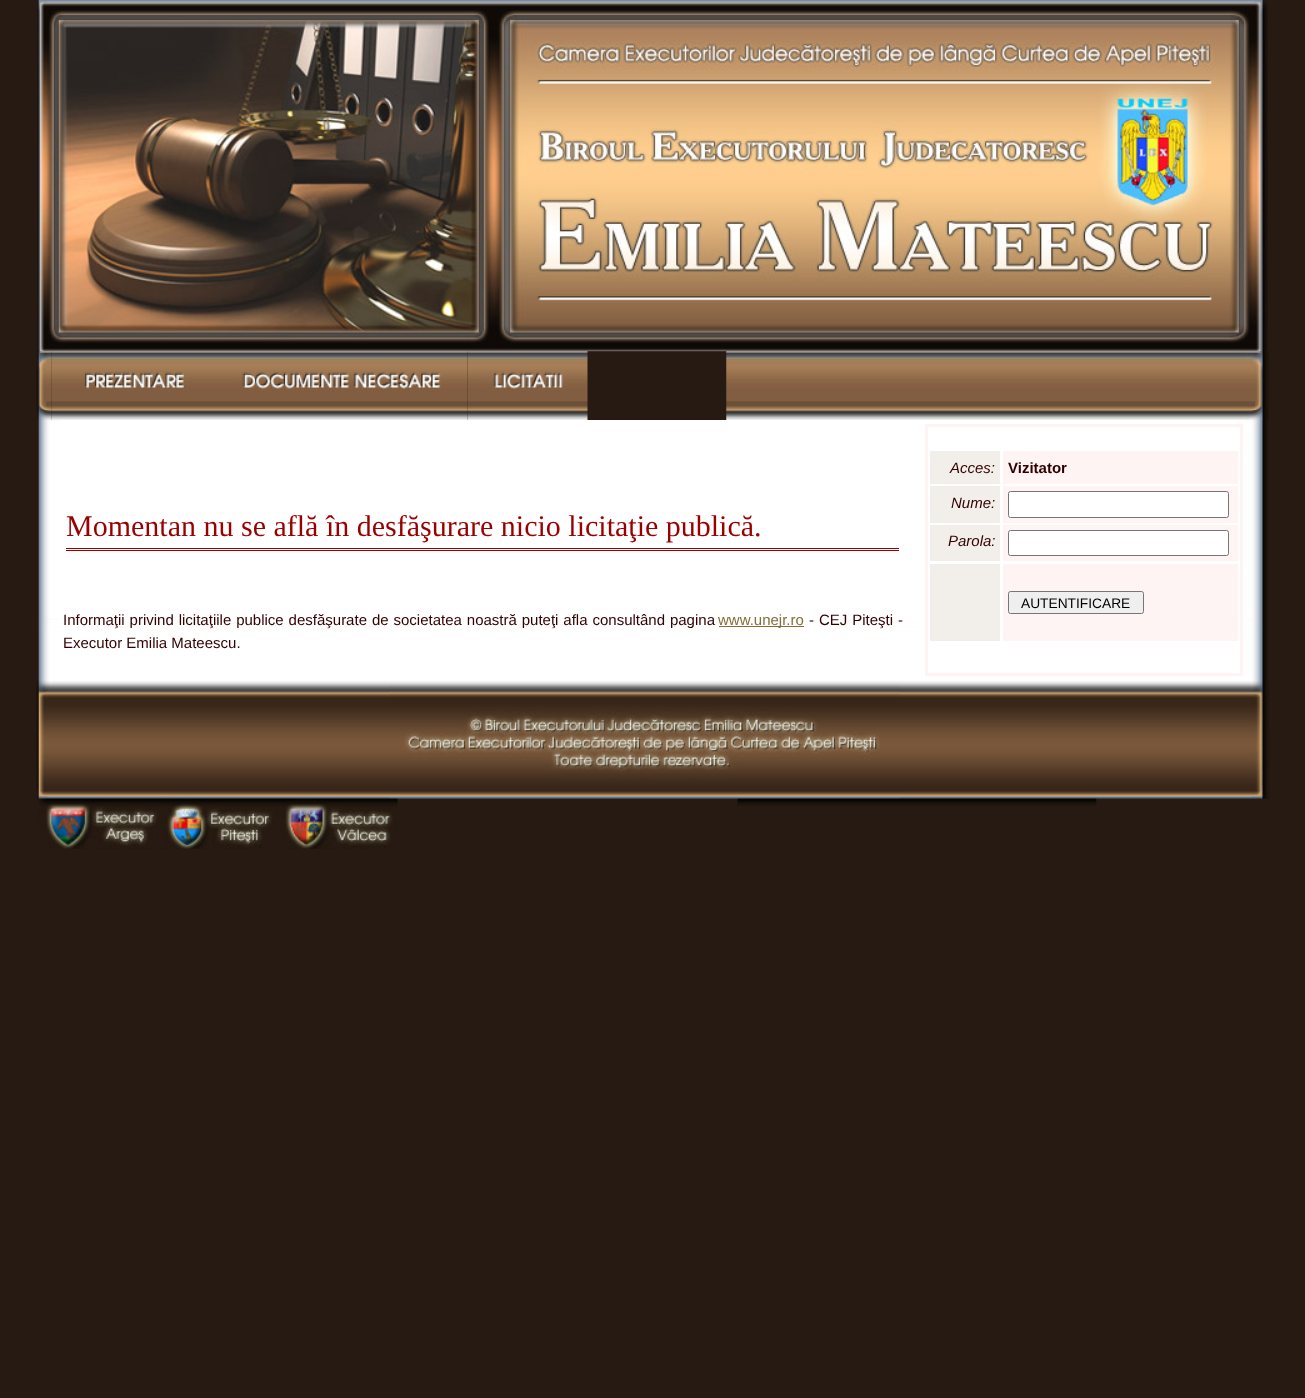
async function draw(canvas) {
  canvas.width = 1305
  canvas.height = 1398
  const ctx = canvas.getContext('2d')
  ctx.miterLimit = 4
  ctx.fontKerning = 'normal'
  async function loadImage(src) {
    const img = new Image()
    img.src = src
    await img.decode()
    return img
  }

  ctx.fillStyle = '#271a12'
  ctx.fillRect(0, 0, 1305, 1398)
  ctx.drawImage(await loadImage('image0.png'), 37, 0, 1231, 352)
  ctx.drawImage(await loadImage('image1.png'), 36, 351, 16, 69)
  ctx.drawImage(await loadImage('image2.png'), 51, 351, 169, 69)
  ctx.drawImage(await loadImage('image3.png'), 220, 351, 248, 69)
  ctx.drawImage(await loadImage('image4.png'), 467, 351, 121, 69)
  ctx.drawImage(await loadImage('image5.png'), 726, 351, 543, 69)
  ctx.drawImage(await loadImage('image6.png'), 38, 420, 1230, 260)
  ctx.fillStyle = '#fff'
  ctx.fillRect(59, 420, 1187, 200)
  ctx.fillStyle = '#900'
  ctx.fillRect(66, 548, 833, 1)
  ctx.fillRect(66, 550, 833, 1)
  ctx.font = '30px Liberation Serif'
  ctx.fillText('Momentan nu se află în desfăşurare nicio licitaţie publică.', 66, 536)
  ctx.wordSpacing = '0.75px'
  ctx.font = '15px Liberation Sans'
  ctx.fillStyle = '#300'
  ctx.fillText('Informaţii privind licitaţiile publice desfăşurate de societatea noastră puteţi afla consultând pagina', 63, 625)
  ctx.fillStyle = '#856e38'
  ctx.fillRect(719, 626, 85, 1)
  ctx.wordSpacing = '0px'
  ctx.fillText('www.unejr.ro', 718, 625)
  ctx.wordSpacing = '0.75px'
  ctx.fillStyle = '#300'
  ctx.fillText('- CEJ Piteşti -', 809, 625)
  ctx.wordSpacing = '0px'
  ctx.fillText('Executor Emilia Mateescu.', 63, 648)
  ctx.strokeStyle = '#fff4f4'
  ctx.lineWidth = 3
  ctx.strokeRect(926.5, 425.5, 315, 249)
  ctx.fillStyle = '#f2efea'
  ctx.fillRect(930, 451, 70, 33)
  ctx.font = 'italic 15px Liberation Sans'
  ctx.fillStyle = '#300'
  ctx.fillText('Acces:', 950, 473)
  ctx.fillStyle = '#fff4f4'
  ctx.fillRect(1003, 451, 235, 33)
  ctx.font = 'bold 15px Liberation Sans'
  ctx.fillStyle = '#300'
  ctx.fillText('Vizitator', 1008, 473)
  ctx.fillStyle = '#f2efea'
  ctx.fillRect(930, 486, 70, 37)
  ctx.font = 'italic 15px Liberation Sans'
  ctx.fillStyle = '#300'
  ctx.fillText('Nume:', 951, 508)
  ctx.fillStyle = '#fff4f4'
  ctx.fillRect(1003, 486, 235, 37)
  ctx.fillStyle = '#fff'
  ctx.beginPath()
  ctx.roundRect(1008.5, 491.5, 220, 26, 2)
  ctx.fill()
  ctx.strokeStyle = '#767676'
  ctx.lineWidth = 1
  ctx.stroke()
  ctx.fillStyle = '#f2efea'
  ctx.fillRect(930, 525, 70, 36)
  ctx.fillStyle = '#300'
  ctx.fillText('Parola:', 948, 546)
  ctx.fillStyle = '#fff4f4'
  ctx.fillRect(1003, 525, 235, 36)
  ctx.fillStyle = '#fff'
  ctx.beginPath()
  ctx.roundRect(1008.5, 530.5, 220, 25, 2)
  ctx.fill()
  ctx.stroke()
  ctx.fillStyle = '#f2efea'
  ctx.fillRect(930, 564, 70, 77)
  ctx.fillStyle = '#fff4f4'
  ctx.fillRect(1003, 564, 235, 77)
  ctx.fillStyle = '#efefef'
  ctx.beginPath()
  ctx.roundRect(1008.5, 591.5, 135, 22, 2)
  ctx.fill()
  ctx.stroke()
  ctx.font = '13.75px Liberation Sans'
  ctx.fillStyle = '#000'
  ctx.fillText('AUTENTIFICARE', 1021, 608)
  ctx.drawImage(await loadImage('image7.png'), 36, 680, 354, 119)
  ctx.drawImage(await loadImage('image8.png'), 390, 680, 510, 119)
  ctx.drawImage(await loadImage('image9.png'), 900, 680, 370, 119)
  ctx.drawImage(await loadImage('image10.png'), 38, 798, 125, 51)
  ctx.drawImage(await loadImage('image11.png'), 162, 798, 118, 51)
  ctx.drawImage(await loadImage('image12.png'), 280, 798, 118, 51)
  ctx.drawImage(await loadImage('image13.png'), 737, 798, 360, 8)
}

draw(document.querySelector('canvas'))
